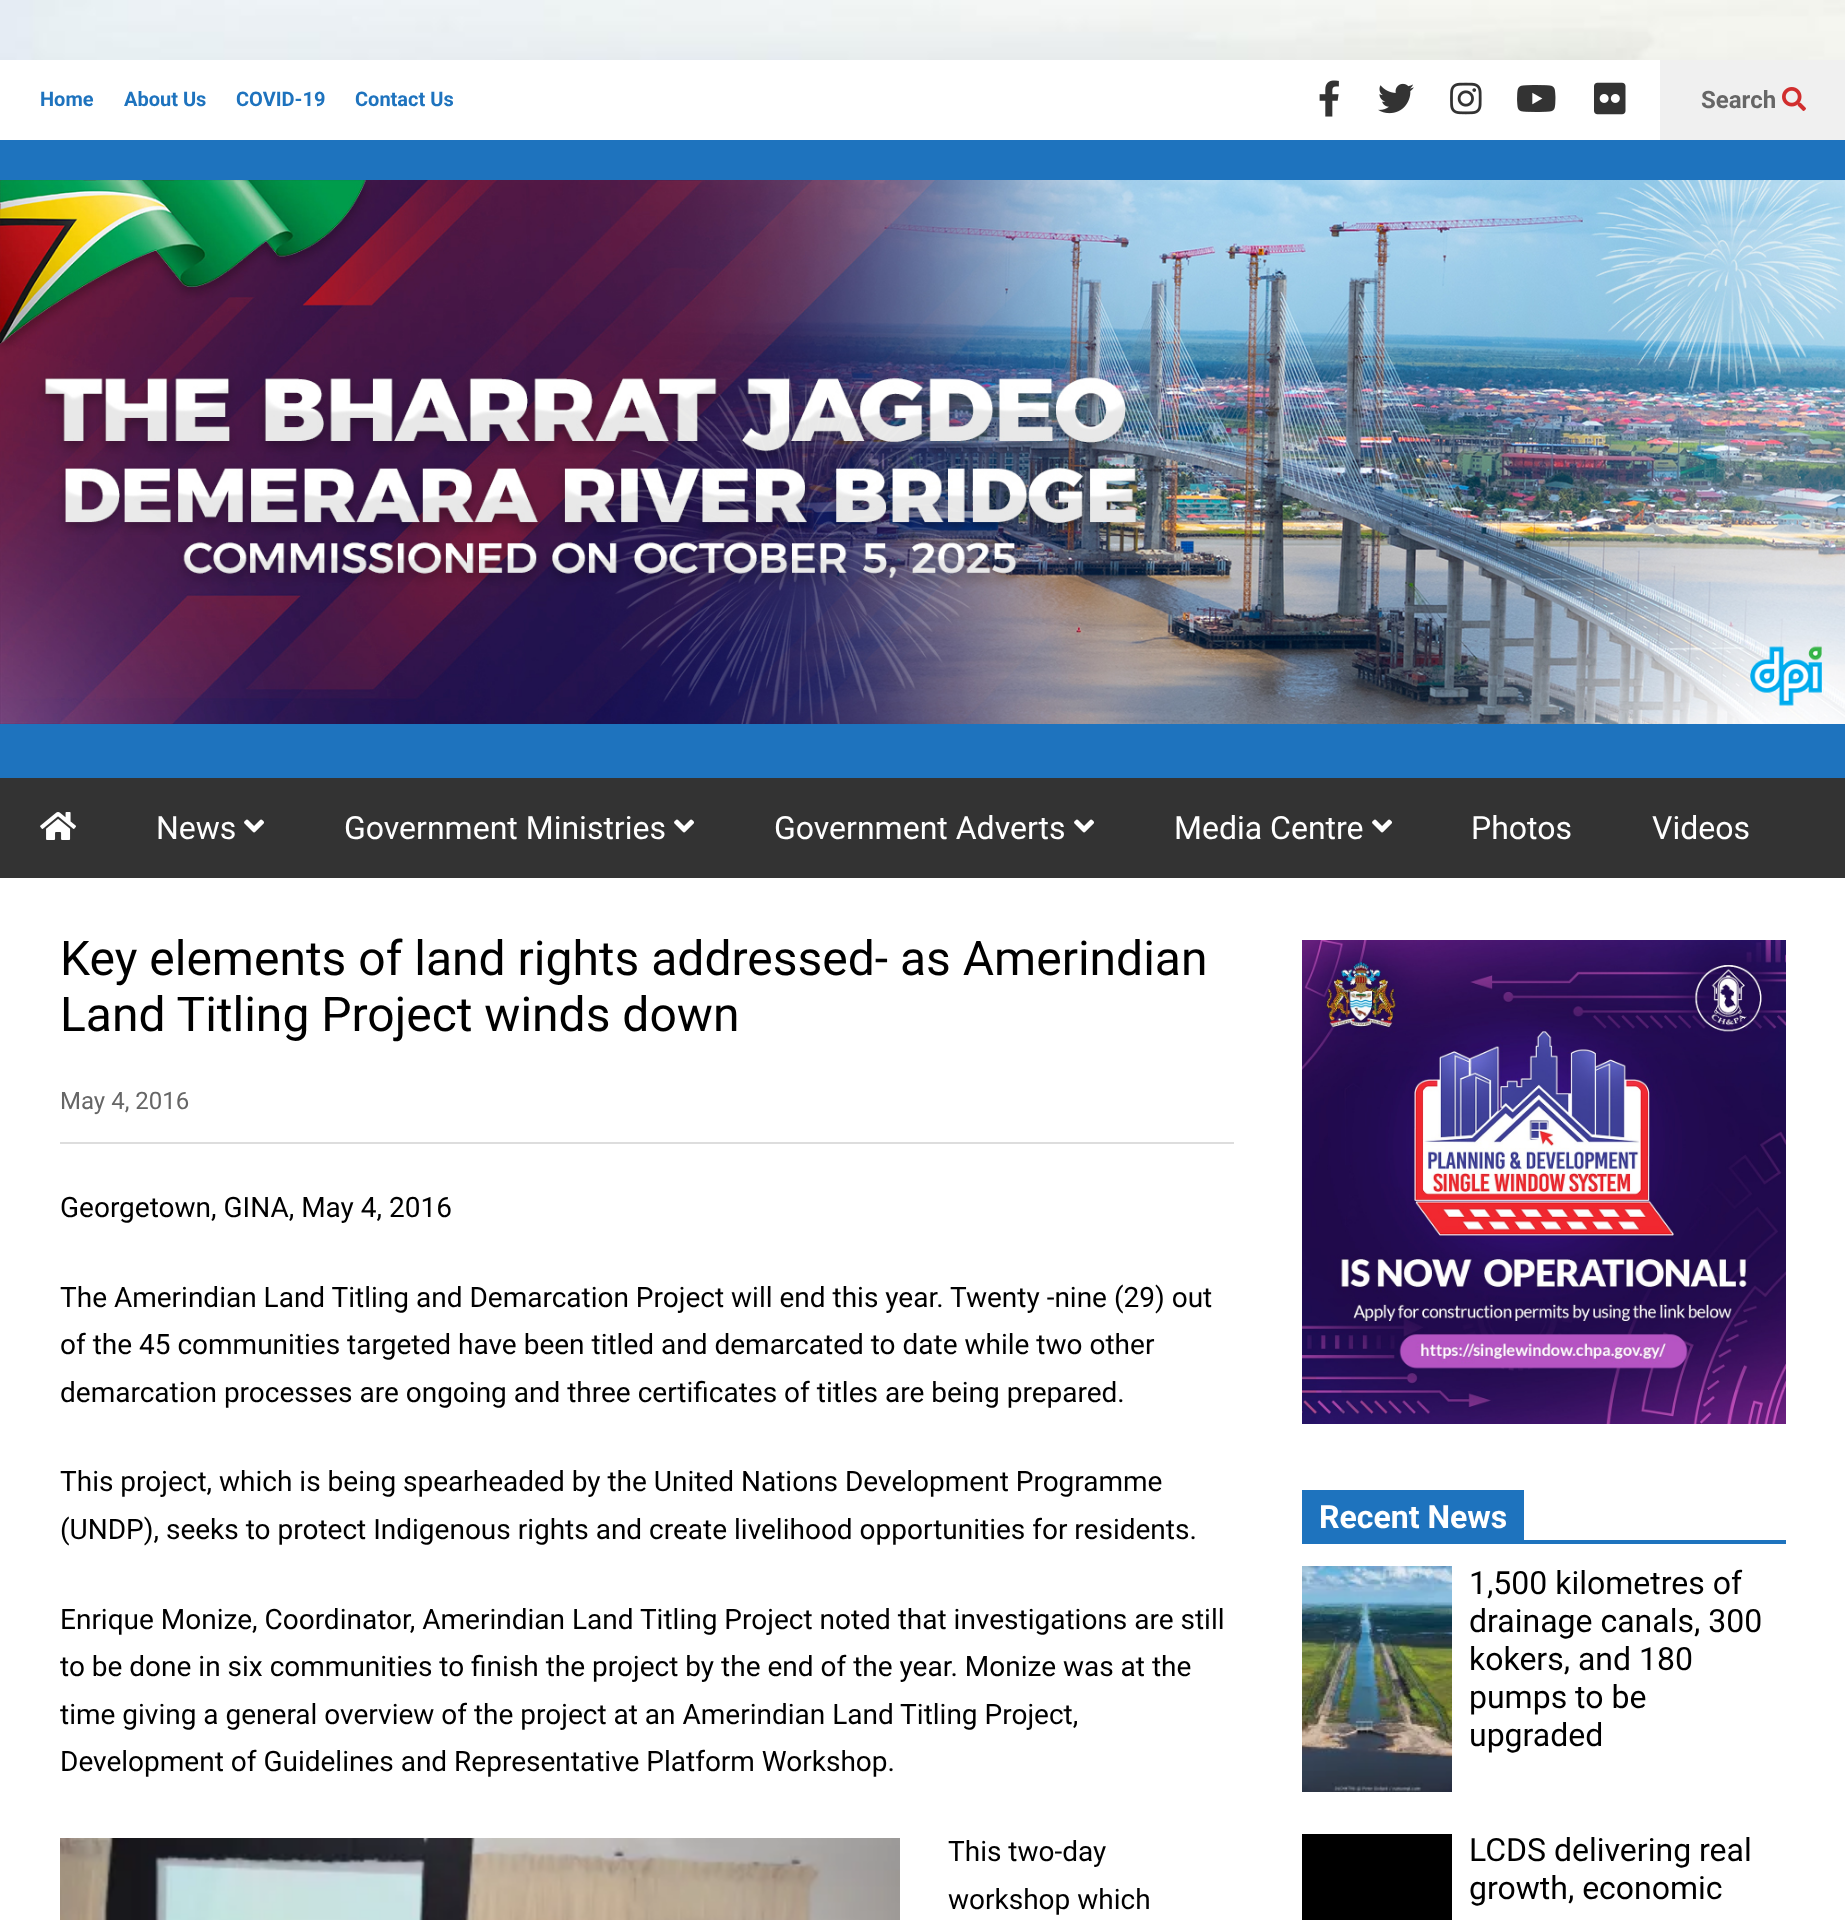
async function draw(canvas) {
  canvas.width = 1845
  canvas.height = 1920
  const ctx = canvas.getContext('2d')
  ctx.miterLimit = 4
  ctx.fontKerning = 'normal'
  async function loadImage(src) {
    const img = new Image()
    img.src = src
    await img.decode()
    return img
  }

  ctx.fillStyle = '#fff'
  ctx.fillRect(0, 0, 1845, 1920)
  ctx.drawImage(await loadImage('image0.png'), 0, 0, 1845, 60)
  ctx.font = 'bold 20px Roboto'
  ctx.fillStyle = '#1e73be'
  ctx.fillText('Home', 40, 106)
  ctx.fillText('About Us', 124, 106)
  ctx.fillText('COVID-19', 236, 106)
  ctx.fillText('Contact Us', 355, 106)
  ctx.drawImage(await loadImage('image1.png'), 1319, 80, 20, 37)
  ctx.drawImage(await loadImage('image2.png'), 1378, 83, 36, 31)
  ctx.drawImage(await loadImage('image3.png'), 1450, 82, 32, 33)
  ctx.drawImage(await loadImage('image4.png'), 1517, 85, 39, 27)
  ctx.drawImage(await loadImage('image5.png'), 1594, 82, 32, 33)
  ctx.fillStyle = '#f0f0f0'
  ctx.fillRect(1660, 60, 185, 80)
  ctx.font = 'bold 24px Roboto'
  ctx.fillStyle = '#666'
  ctx.fillText('Search', 1701, 108)
  ctx.drawImage(await loadImage('image6.png'), 1782, 87, 24, 24)
  ctx.fillStyle = '#1e73be'
  ctx.fillRect(0, 140, 1845, 638)
  ctx.drawImage(await loadImage('image7.png'), 0, 180, 1845, 544)
  ctx.fillStyle = '#333'
  ctx.fillRect(0, 778, 1845, 100)
  ctx.drawImage(await loadImage('image8.png'), 40, 812, 36, 28)
  ctx.font = '32px Roboto'
  ctx.fillStyle = '#fff'
  ctx.fillText('News', 156, 839)
  ctx.drawImage(await loadImage('image9.png'), 244, 819, 20, 14)
  ctx.fillText('Government Ministries', 344, 839)
  ctx.drawImage(await loadImage('image9.png'), 674, 819, 20, 14)
  ctx.fillText('Government Adverts', 774, 839)
  ctx.drawImage(await loadImage('image9.png'), 1074, 819, 20, 14)
  ctx.fillText('Media Centre', 1174, 839)
  ctx.drawImage(await loadImage('image9.png'), 1372, 819, 20, 14)
  ctx.fillText('Photos', 1471, 839)
  ctx.fillText('Videos', 1652, 839)
  ctx.font = '48px Roboto'
  ctx.fillStyle = '#000'
  ctx.fillText('Key elements of land rights addressed- as Amerindian', 60, 975)
  ctx.fillText('Land Titling Project winds down', 60, 1031)
  ctx.fillStyle = '#ddd'
  ctx.fillRect(60, 1142, 1174, 2)
  ctx.font = '24px Roboto'
  ctx.fillStyle = '#666'
  ctx.fillText('May 4, 2016', 60, 1109)
  ctx.font = '28px Roboto'
  ctx.fillStyle = '#000'
  ctx.fillText('Georgetown, GINA, May 4, 2016', 60, 1217)
  ctx.fillText('The Amerindian Land Titling and Demarcation Project will end this year. Twenty -nine (29) out', 60, 1307)
  ctx.fillText('of the 45 communities targeted have been titled and demarcated to date while two other', 60, 1354)
  ctx.fillText('demarcation processes are ongoing and three certificates of titles are being prepared.', 60, 1402)
  ctx.fillText('This project, which is being spearheaded by the United Nations Development Programme', 60, 1491)
  ctx.fillText('(UNDP), seeks to protect Indigenous rights and create livelihood opportunities for residents.', 60, 1539)
  ctx.fillText('Enrique Monize, Coordinator, Amerindian Land Titling Project noted that investigations are still', 60, 1629)
  ctx.fillText('to be done in six communities to finish the project by the end of the year. Monize was at the', 60, 1676)
  ctx.fillText('time giving a general overview of the project at an Amerindian Land Titling Project,', 60, 1724)
  ctx.fillText('Development of Guidelines and Representative Platform Workshop.', 60, 1771)
  ctx.drawImage(await loadImage('image10.png'), 60, 1838, 840, 82)
  ctx.fillText('This two-day', 948, 1861)
  ctx.fillText('workshop which', 948, 1909)
  ctx.drawImage(await loadImage('image11.png'), 1302, 940, 484, 484)
  ctx.fillStyle = '#1e73be'
  ctx.fillRect(1524, 1540, 262, 4)
  ctx.fillRect(1302, 1490, 222, 54)
  ctx.font = 'bold 32px Roboto'
  ctx.fillStyle = '#fff'
  ctx.fillText('Recent News', 1319, 1528)
  ctx.drawImage(await loadImage('image12.png'), 1302, 1566, 150, 226)
  ctx.font = '32px Roboto'
  ctx.fillStyle = '#000'
  ctx.fillText('1,500 kilometres of', 1469, 1594)
  ctx.fillText('drainage canals, 300', 1469, 1632)
  ctx.fillText('kokers, and 180', 1469, 1670)
  ctx.fillText('pumps to be', 1469, 1708)
  ctx.fillText('upgraded', 1469, 1746)
  ctx.fillRect(1302, 1834, 150, 86)
  ctx.fillText('LCDS delivering real', 1469, 1861)
  ctx.fillText('growth, economic', 1469, 1899)
}

draw(document.querySelector('canvas'))
